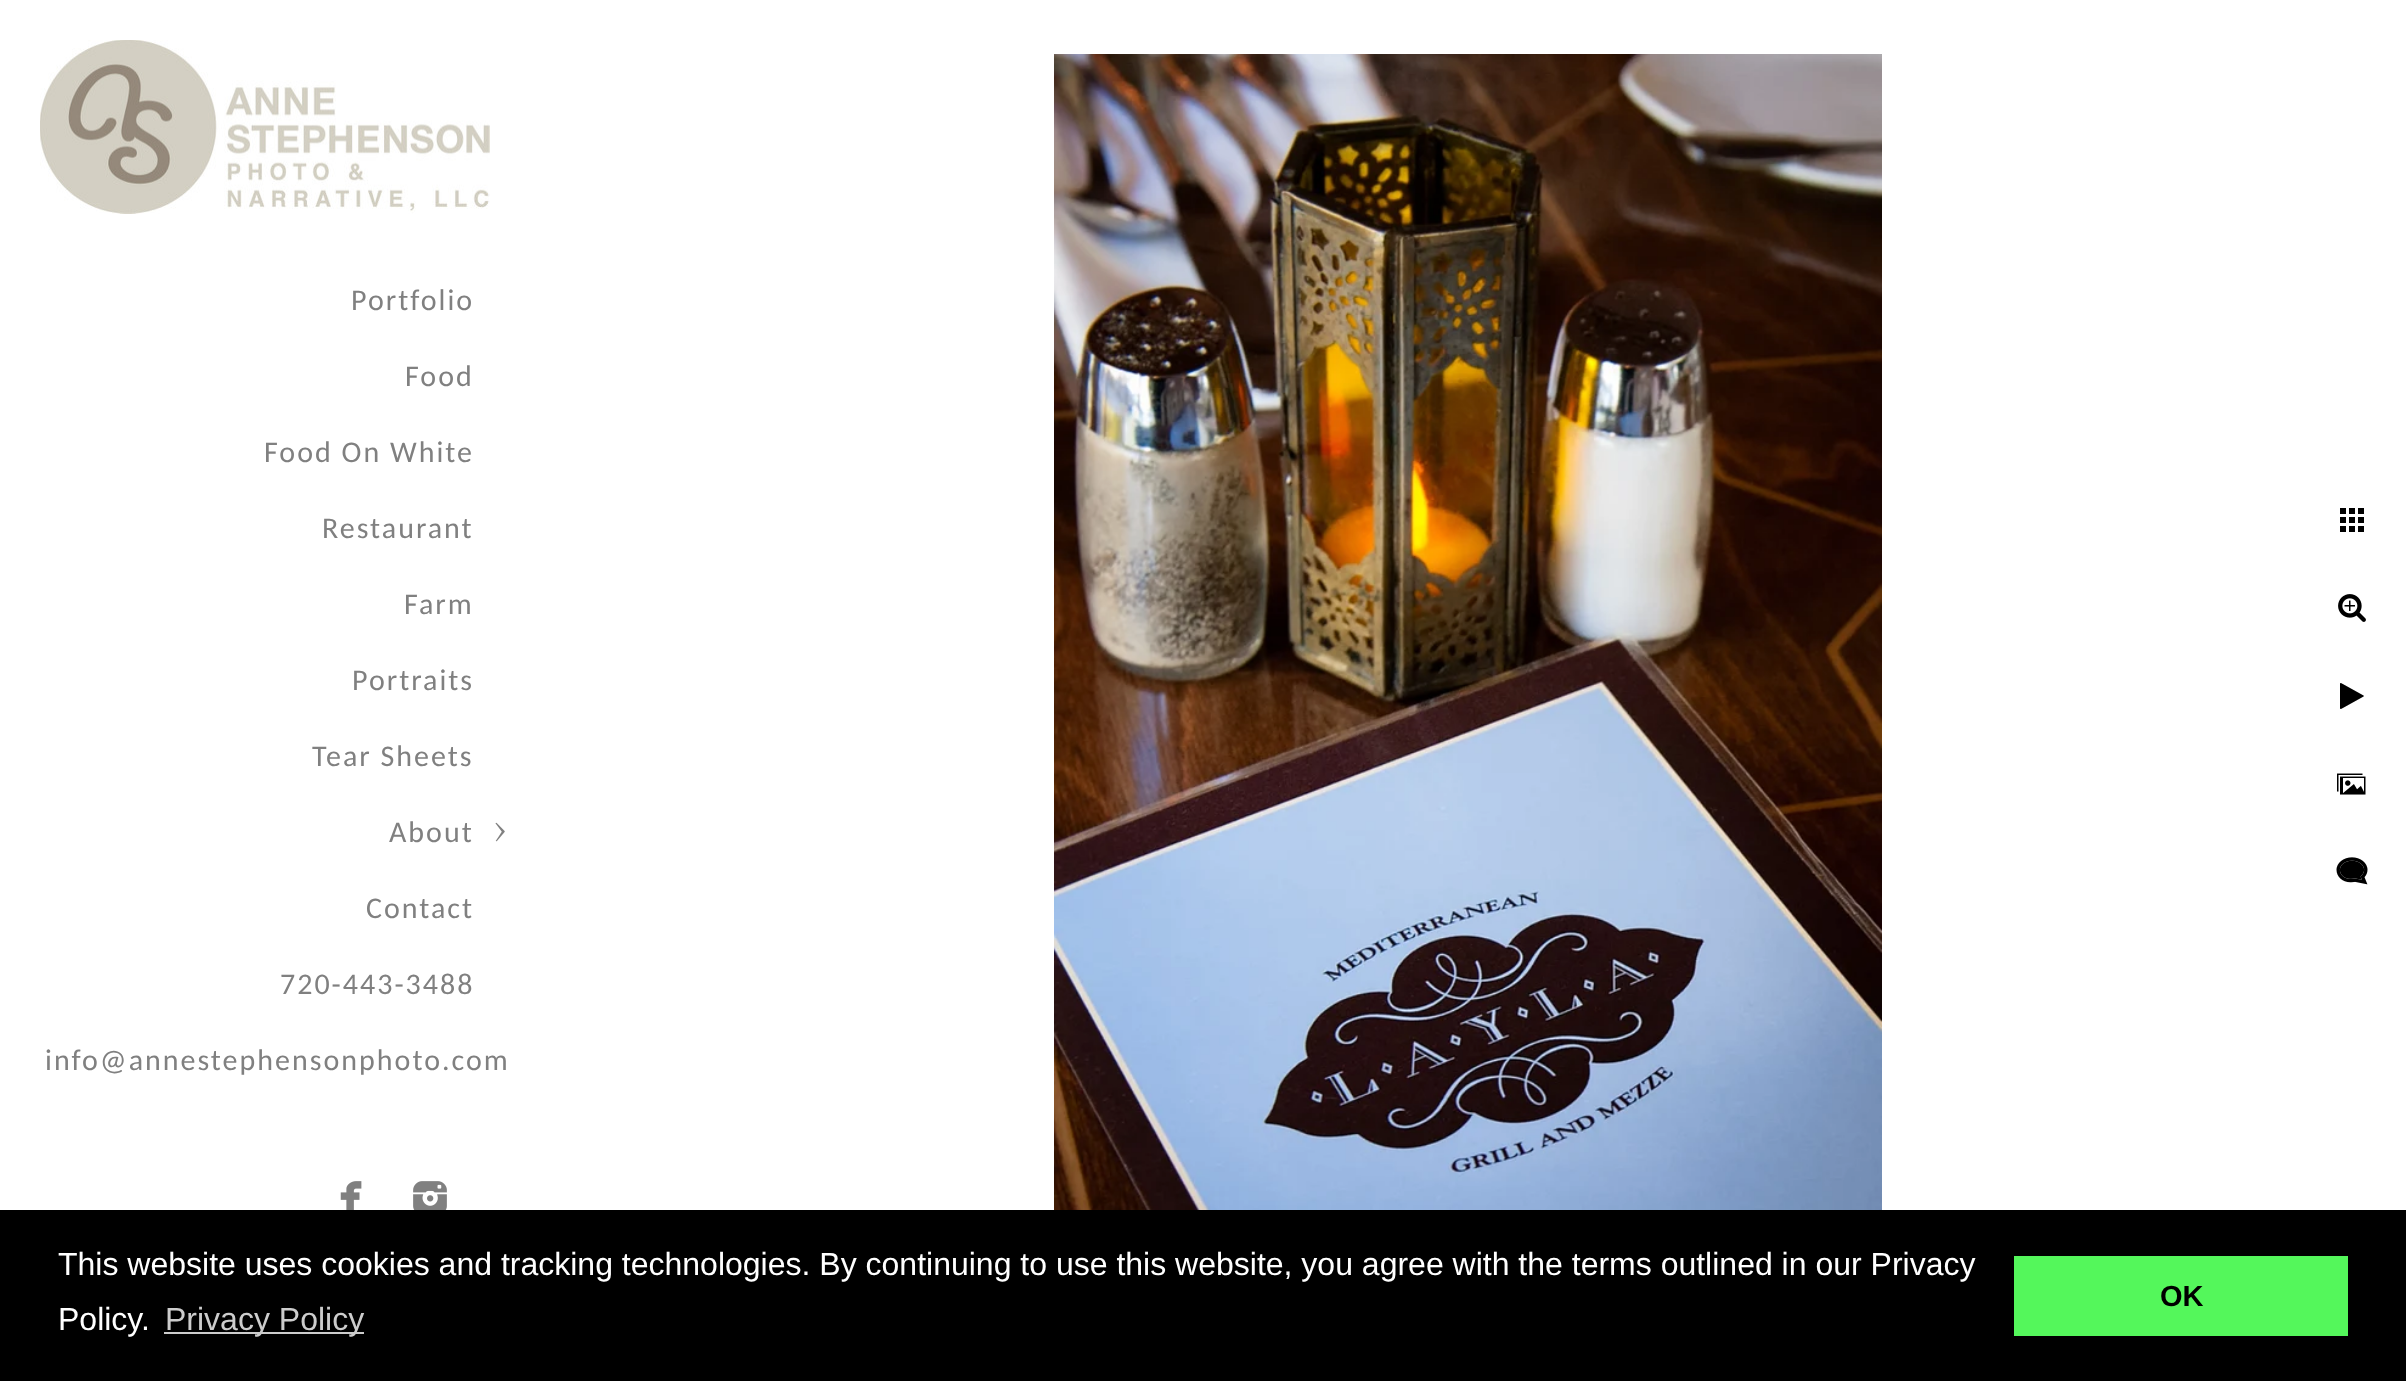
async function draw(canvas) {
  canvas.width = 2406
  canvas.height = 1381
  const ctx = canvas.getContext('2d')
  ctx.miterLimit = 4
  ctx.fontKerning = 'normal'
  async function loadImage(src) {
    const img = new Image()
    img.src = src
    await img.decode()
    return img
  }

  ctx.fillStyle = '#fff'
  ctx.fillRect(0, 0, 2406, 1381)
  ctx.drawImage(await loadImage('image0.png'), 40, 40, 450, 174)
  ctx.letterSpacing = '2px'
  ctx.font = '30px Carlito'
  ctx.fillStyle = '#808080'
  ctx.fillText('Portfolio', 351, 310)
  ctx.fillText('Food', 405, 386)
  ctx.fillText('Food On White', 264, 462)
  ctx.fillText('Restaurant', 322, 538)
  ctx.fillText('Farm', 404, 614)
  ctx.fillText('Portraits', 352, 690)
  ctx.fillText('Tear Sheets', 312, 766)
  ctx.fillText('About', 389, 842)
  ctx.drawImage(await loadImage('image1.png'), 495, 822, 10, 20)
  ctx.fillText('Contact', 366, 918)
  ctx.fillText('720-443-3488', 280, 994)
  ctx.fillText('info@annestephensonphoto.com', 45, 1070)
  ctx.drawImage(await loadImage('image2.png'), 340, 1181, 22, 29)
  ctx.drawImage(await loadImage('image3.png'), 413, 1181, 34, 29)
  ctx.drawImage(await loadImage('image4.png'), 1054, 54, 828, 1156)
  ctx.drawImage(await loadImage('image5.png'), 2340, 508, 24, 24)
  ctx.drawImage(await loadImage('image6.png'), 2338, 594, 28, 28)
  ctx.drawImage(await loadImage('image7.png'), 2340, 683, 24, 26)
  ctx.drawImage(await loadImage('image8.png'), 2337, 773, 29, 22)
  ctx.drawImage(await loadImage('image9.png'), 2336, 857, 32, 28)
  ctx.fillStyle = '#000'
  ctx.fillRect(0, 1210, 2406, 171)
  ctx.letterSpacing = '0px'
  ctx.font = '32px Liberation Sans'
  ctx.fillStyle = '#fff'
  ctx.fillText('This website uses cookies and tracking technologies. By continuing to use this website, you agree with the terms outlined in our Privacy', 58, 1275)
  ctx.fillText('Policy.', 58, 1330)
  ctx.fillStyle = '#ccc'
  ctx.fillRect(164, 1332, 200, 2)
  ctx.fillText('Privacy Policy', 165, 1330)
  ctx.fillStyle = '#54f75b'
  ctx.fillRect(2014, 1256, 334, 80)
  ctx.font = 'bold 29px Liberation Sans'
  ctx.fillStyle = '#000'
  ctx.fillText('OK', 2160, 1306)
}

draw(document.querySelector('canvas'))
